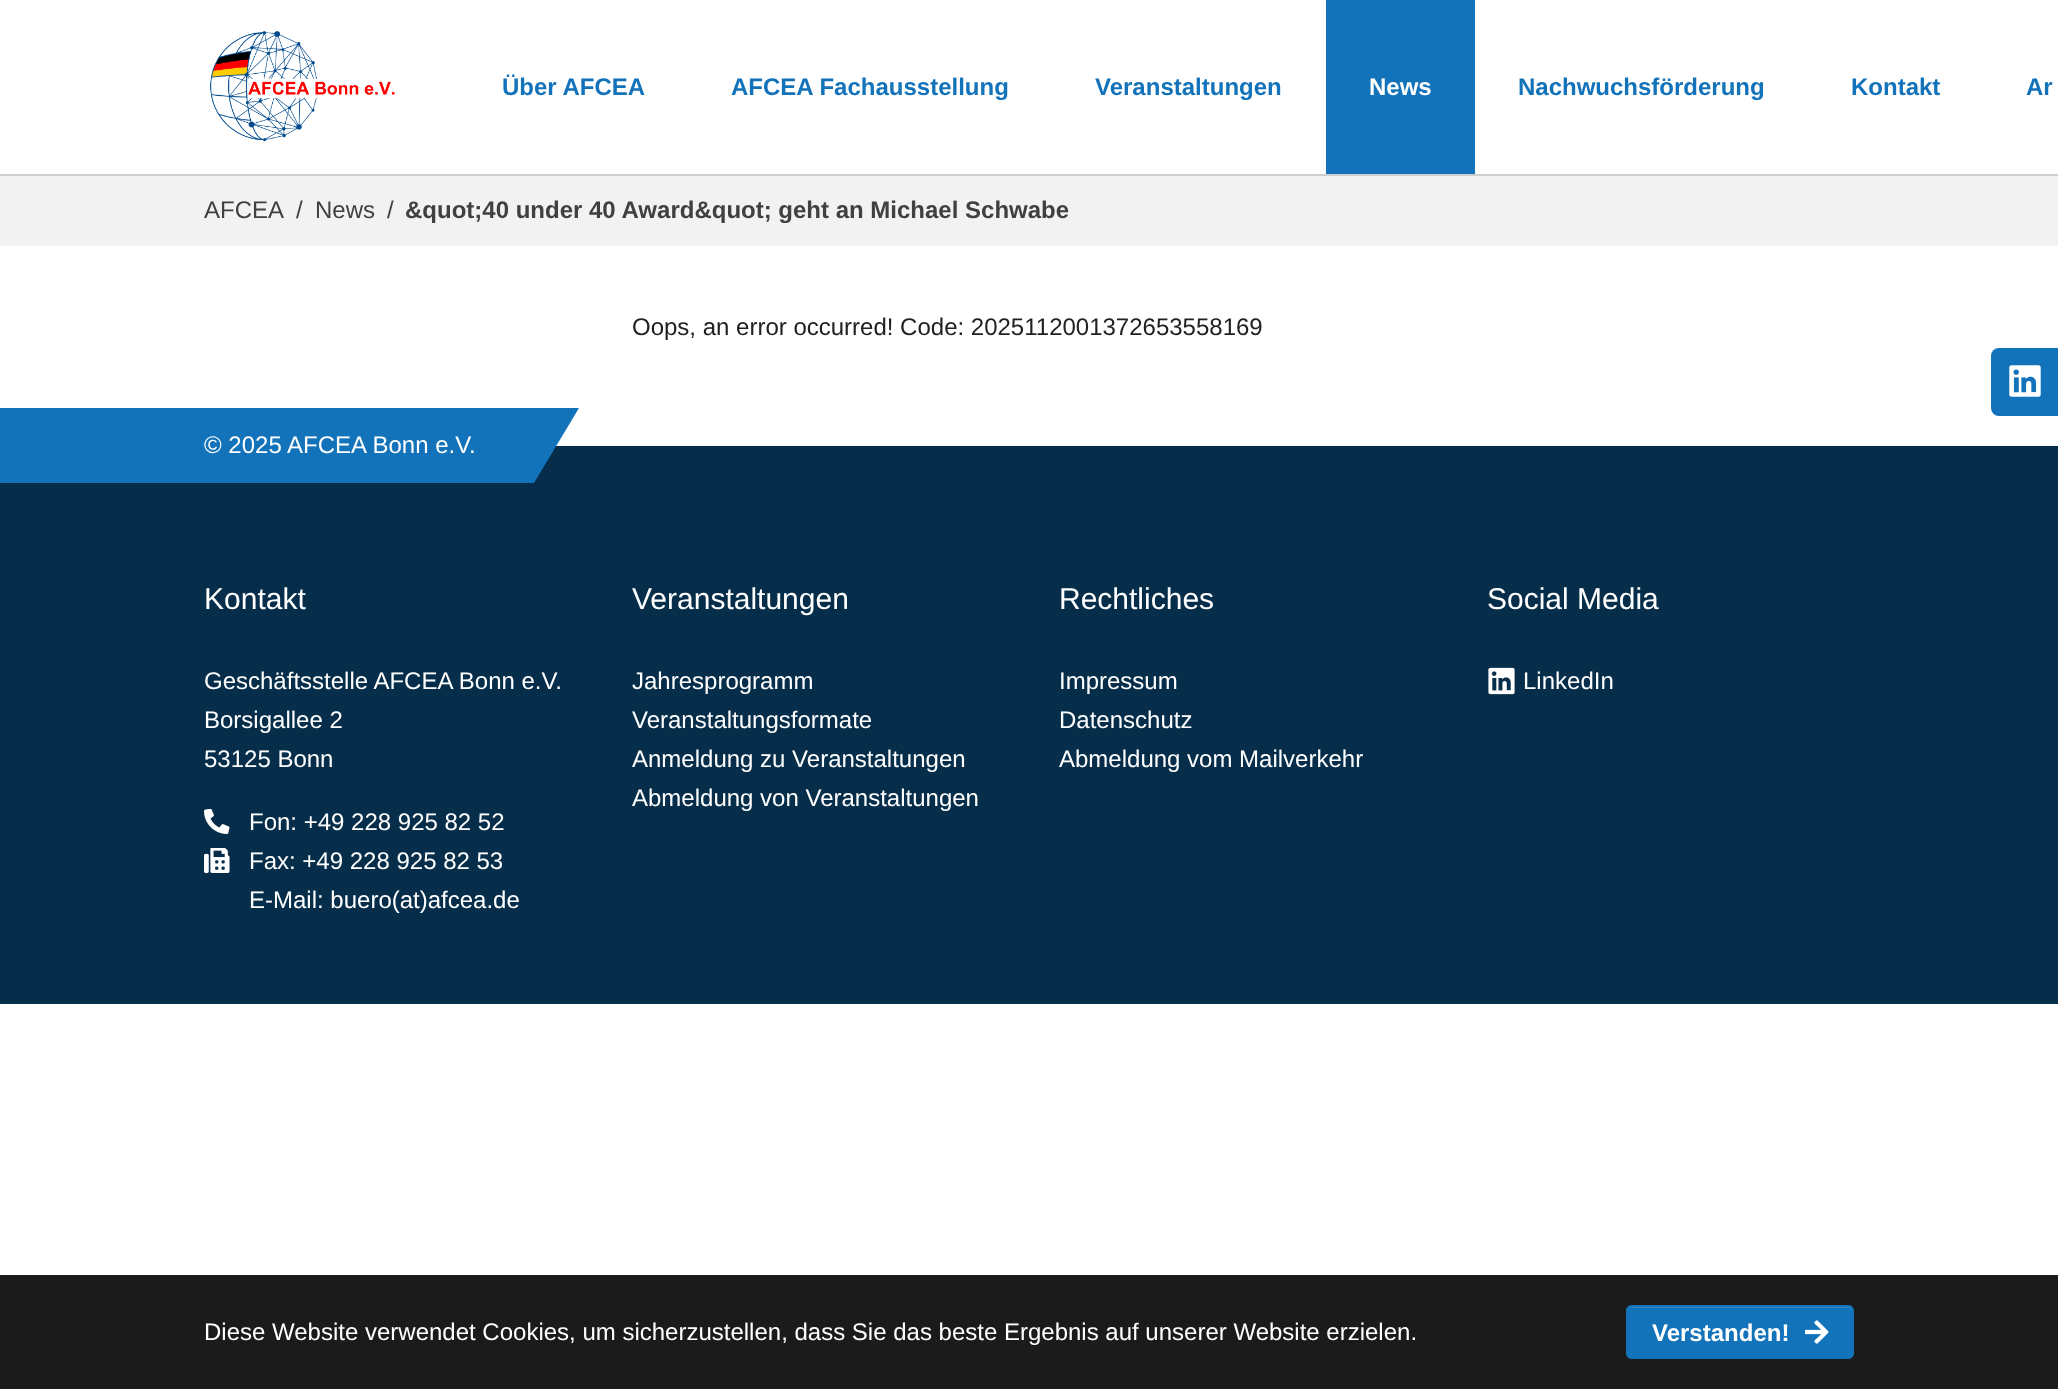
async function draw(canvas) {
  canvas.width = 2058
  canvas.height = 1389
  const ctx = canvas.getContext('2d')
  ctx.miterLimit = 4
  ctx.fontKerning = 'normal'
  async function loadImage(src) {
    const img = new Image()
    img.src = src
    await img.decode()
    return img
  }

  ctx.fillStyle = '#fff'
  ctx.fillRect(0, 0, 2058, 1389)
  ctx.fillStyle = '#cecece'
  ctx.fillRect(0, 174, 2058, 2)
  ctx.drawImage(await loadImage('image0.png'), 210, 31, 185, 111)
  ctx.font = 'bold 24px Arimo'
  ctx.fillStyle = '#1272ba'
  ctx.fillText('Über AFCEA', 502, 95)
  ctx.fillText('AFCEA Fachausstellung', 731, 95)
  ctx.fillText('Veranstaltungen', 1095, 95)
  ctx.fillRect(1326, 0, 149, 174)
  ctx.fillStyle = '#fff'
  ctx.fillText('News', 1369, 95)
  ctx.fillStyle = '#1272ba'
  ctx.fillText('Nachwuchsförderung', 1518, 95)
  ctx.fillText('Kontakt', 1851, 95)
  ctx.fillText('Ar', 2026, 95)
  ctx.fillStyle = '#f2f2f2'
  ctx.fillRect(0, 176, 2058, 70)
  ctx.font = '24px Arimo'
  ctx.fillStyle = '#404040'
  ctx.fillText('AFCEA', 204, 218)
  ctx.fillText('/', 296, 218)
  ctx.fillText('News', 315, 218)
  ctx.fillText('/', 387, 218)
  ctx.font = 'bold 24px Arimo'
  ctx.fillText('&quot;40 under 40 Award&quot; geht an Michael Schwabe', 405, 218)
  ctx.font = '24px Arimo'
  ctx.fillStyle = '#212121'
  ctx.fillText('Oops, an error occurred! Code: 2025112001372653558169', 632, 335)
  ctx.fillStyle = '#1272ba'
  ctx.beginPath()
  ctx.roundRect(1991, 348, 67, 68, [8, 0, 0, 8])
  ctx.fill()
  ctx.drawImage(await loadImage('image1.png'), 2009, 365, 32, 32)
  ctx.fillStyle = '#062e4a'
  ctx.fillRect(0, 446, 2058, 558)
  ctx.fillStyle = '#1272ba'
  ctx.beginPath()
  ctx.moveTo(0, 408)
  ctx.lineTo(0, 483)
  ctx.lineTo(534, 483)
  ctx.lineTo(579, 408)
  ctx.closePath()
  ctx.fill()
  ctx.fillStyle = '#fff'
  ctx.fillText('© 2025 AFCEA Bonn e.V.', 204, 453)
  ctx.font = '30px Arimo'
  ctx.fillText('Kontakt', 204, 609)
  ctx.font = '24px Arimo'
  ctx.fillText('Geschäftsstelle AFCEA Bonn e.V.', 204, 689)
  ctx.fillText('Borsigallee 2', 204, 728)
  ctx.fillText('53125 Bonn', 204, 767)
  ctx.drawImage(await loadImage('image2.png'), 204, 809, 26, 25)
  ctx.fillText('Fon: +49 228 925 82 52', 249, 830)
  ctx.fillText('Fax: +49 228 925 82 53', 249, 869)
  ctx.fillText('E-Mail: buero(at)afcea.de', 249, 908)
  ctx.drawImage(await loadImage('image3.png'), 204, 848, 26, 25)
  ctx.font = '30px Arimo'
  ctx.fillText('Veranstaltungen', 632, 609)
  ctx.font = '24px Arimo'
  ctx.fillText('Jahresprogramm', 632, 689)
  ctx.fillText('Veranstaltungsformate', 632, 728)
  ctx.fillText('Anmeldung zu Veranstaltungen', 632, 767)
  ctx.fillText('Abmeldung von Veranstaltungen', 632, 806)
  ctx.font = '30px Arimo'
  ctx.fillText('Rechtliches', 1059, 609)
  ctx.font = '24px Arimo'
  ctx.fillText('Impressum', 1059, 689)
  ctx.fillText('Datenschutz', 1059, 728)
  ctx.fillText('Abmeldung vom Mailverkehr', 1059, 767)
  ctx.font = '30px Arimo'
  ctx.fillText('Social Media', 1487, 609)
  ctx.drawImage(await loadImage('image4.png'), 1488, 667, 27, 28)
  ctx.font = '24px Arimo'
  ctx.fillText('LinkedIn', 1523, 689)
  ctx.fillStyle = '#1b1b1b'
  ctx.fillRect(0, 1275, 2058, 114)
  ctx.fillStyle = '#fff'
  ctx.fillText('Diese Website verwendet Cookies, um sicherzustellen, dass Sie das beste Ergebnis auf unserer Website erzielen.', 204, 1340)
  ctx.fillStyle = '#1272ba'
  ctx.beginPath()
  ctx.roundRect(1626, 1305, 228, 54, 6)
  ctx.fill()
  ctx.drawImage(await loadImage('image5.png'), 1805, 1320, 24, 24)
  ctx.fillStyle = '#3687c4'
  ctx.beginPath()
  ctx.moveTo(1632, 1308)
  ctx.lineTo(1848, 1308)
  ctx.bezierCurveTo(1850, 1308, 1852, 1310, 1852, 1312)
  ctx.lineTo(1852, 1354)
  ctx.lineTo(1851, 1357)
  ctx.bezierCurveTo(1852, 1356, 1853, 1354, 1853, 1353)
  ctx.lineTo(1853, 1312)
  ctx.bezierCurveTo(1853, 1309, 1851, 1307, 1848, 1307)
  ctx.lineTo(1633, 1307)
  ctx.bezierCurveTo(1630, 1307, 1628, 1309, 1628, 1312)
  ctx.bezierCurveTo(1628, 1310, 1630, 1308, 1632, 1308)
  ctx.closePath()
  ctx.fill()
  ctx.beginPath()
  ctx.roundRect(1627, 1306, 226, 52, 5)
  ctx.strokeStyle = '#1272ba'
  ctx.lineWidth = 2
  ctx.stroke()
  ctx.font = 'bold 24px Arimo'
  ctx.fillStyle = '#fff'
  ctx.fillText('Verstanden!', 1652, 1341)
}

draw(document.querySelector('canvas'))
